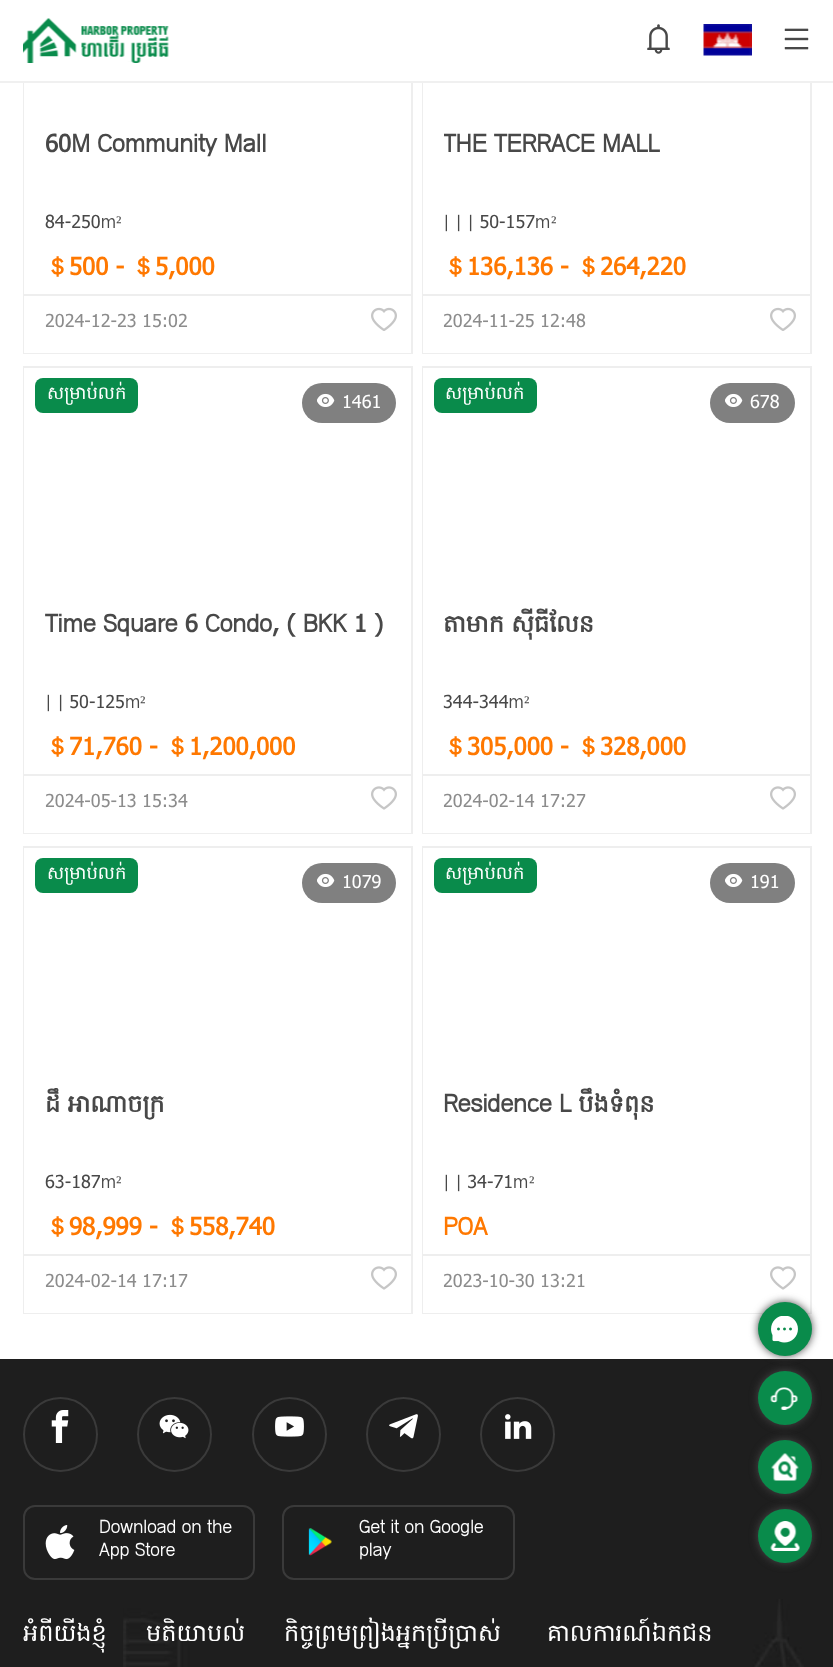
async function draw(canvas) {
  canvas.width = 833
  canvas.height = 1667
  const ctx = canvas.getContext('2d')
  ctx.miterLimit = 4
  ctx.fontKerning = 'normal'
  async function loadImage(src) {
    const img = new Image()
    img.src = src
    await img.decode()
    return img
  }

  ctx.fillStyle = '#fff'
  ctx.fillRect(0, 0, 833, 1667)
  ctx.fillStyle = '#f0f0f0'
  ctx.fillRect(0, 81, 833, 2)
  ctx.drawImage(await loadImage('image0.png'), 23, 18, 146, 45)
  ctx.drawImage(await loadImage('image1.png'), 647, 24, 23, 30)
  ctx.drawImage(await loadImage('image2.png'), 703, 24, 49, 32)
  ctx.drawImage(await loadImage('image3.png'), 784, 28, 25, 22)
  ctx.fillStyle = '#eee'
  ctx.fillRect(23, 83, 390, 271)
  ctx.fillStyle = '#fff'
  ctx.fillRect(24, 83, 387, 270)
  ctx.font = 'bold 24px Hanuman'
  ctx.fillStyle = '#484848'
  ctx.fillText('60M Community Mall', 45, 152)
  ctx.font = '18px Hanuman'
  ctx.fillText('84-250m', 45, 228)
  ctx.font = '18px Liberation Serif'
  ctx.fillText('²', 116, 228)
  ctx.font = 'bold 24px WenQuanYi Zen Hei'
  ctx.fillStyle = '#ff7800'
  ctx.fillText('＄', 45, 275)
  ctx.font = 'bold 24px Hanuman'
  ctx.fillText('500 -', 69, 275)
  ctx.font = 'bold 24px WenQuanYi Zen Hei'
  ctx.fillText('＄', 131, 275)
  ctx.font = 'bold 24px Hanuman'
  ctx.fillText('5,000', 155, 275)
  ctx.fillStyle = '#eee'
  ctx.fillRect(24, 294, 387, 2)
  ctx.font = '18px Hanuman'
  ctx.fillStyle = '#8c8c8c'
  ctx.fillText('2024-12-23 15:02', 45, 327)
  ctx.drawImage(await loadImage('image4.png'), 371, 307, 26, 24)
  ctx.fillStyle = '#eee'
  ctx.fillRect(422, 83, 390, 271)
  ctx.fillStyle = '#fff'
  ctx.fillRect(423, 83, 387, 270)
  ctx.save()
  ctx.beginPath()
  ctx.rect(444, 128, 345, 37)
  ctx.clip()
  ctx.font = 'bold 24px Hanuman'
  ctx.fillStyle = '#484848'
  ctx.fillText('THE TERRACE MALL', 443, 152)
  ctx.restore()
  ctx.fillStyle = '#484848'
  ctx.fillText('| | | 50-157m', 443, 228)
  ctx.font = '18px Liberation Serif'
  ctx.fillText('²', 551, 228)
  ctx.font = 'bold 24px WenQuanYi Zen Hei'
  ctx.fillStyle = '#ff7800'
  ctx.fillText('＄', 443, 275)
  ctx.font = 'bold 24px Hanuman'
  ctx.fillText('136,136 -', 467, 275)
  ctx.font = 'bold 24px WenQuanYi Zen Hei'
  ctx.fillText('＄', 576, 275)
  ctx.font = 'bold 24px Hanuman'
  ctx.fillText('264,220', 600, 275)
  ctx.fillStyle = '#eee'
  ctx.fillRect(423, 294, 387, 2)
  ctx.font = '18px Hanuman'
  ctx.fillStyle = '#8c8c8c'
  ctx.fillText('2024-11-25 12:48', 443, 327)
  ctx.drawImage(await loadImage('image4.png'), 770, 307, 26, 24)
  ctx.fillStyle = '#eee'
  ctx.fillRect(23, 366, 390, 468)
  ctx.fillStyle = '#fff'
  ctx.fillRect(24, 368, 387, 465)
  ctx.fillStyle = '#098b4b'
  ctx.beginPath()
  ctx.roundRect(35, 378, 103, 35, 8)
  ctx.fill()
  ctx.fillStyle = '#fff'
  ctx.fillText('សម្រាប់លក់', 47, 399)
  ctx.fillStyle = '#808080'
  ctx.beginPath()
  ctx.roundRect(302, 383, 94, 40, 20)
  ctx.fill()
  ctx.drawImage(await loadImage('image5.png'), 317, 393, 18, 14)
  ctx.fillStyle = '#fff'
  ctx.fillText('1461', 342, 408)
  ctx.font = 'bold 24px Hanuman'
  ctx.fillStyle = '#484848'
  ctx.fillText('Time Square 6 Condo, ( BKK 1 )', 45, 632)
  ctx.font = '18px Hanuman'
  ctx.fillText('| | 50-125m', 45, 708)
  ctx.font = '18px Liberation Serif'
  ctx.fillText('²', 140, 708)
  ctx.font = 'bold 24px WenQuanYi Zen Hei'
  ctx.fillStyle = '#ff7800'
  ctx.fillText('＄', 45, 755)
  ctx.font = 'bold 24px Hanuman'
  ctx.fillText('71,760 -', 69, 755)
  ctx.font = 'bold 24px WenQuanYi Zen Hei'
  ctx.fillText('＄', 165, 755)
  ctx.font = 'bold 24px Hanuman'
  ctx.fillText('1,200,000', 189, 755)
  ctx.fillStyle = '#eee'
  ctx.fillRect(24, 774, 387, 2)
  ctx.font = '18px Hanuman'
  ctx.fillStyle = '#8c8c8c'
  ctx.fillText('2024-05-13 15:34', 45, 807)
  ctx.drawImage(await loadImage('image6.png'), 371, 786, 26, 24)
  ctx.fillStyle = '#eee'
  ctx.fillRect(422, 366, 390, 468)
  ctx.fillStyle = '#fff'
  ctx.fillRect(423, 368, 387, 465)
  ctx.fillStyle = '#098b4b'
  ctx.beginPath()
  ctx.roundRect(434, 378, 103, 35, 8)
  ctx.fill()
  ctx.fillStyle = '#fff'
  ctx.fillText('សម្រាប់លក់', 445, 399)
  ctx.fillStyle = '#808080'
  ctx.beginPath()
  ctx.roundRect(710, 383, 85, 40, 20)
  ctx.fill()
  ctx.drawImage(await loadImage('image5.png'), 725, 393, 18, 14)
  ctx.fillStyle = '#fff'
  ctx.fillText('678', 750, 408)
  ctx.font = 'bold 24px Hanuman'
  ctx.fillStyle = '#484848'
  ctx.fillText('តាមោក ស៊ីធីលែន', 443, 632)
  ctx.font = '18px Hanuman'
  ctx.fillText('344-344m', 443, 708)
  ctx.font = '18px Liberation Serif'
  ctx.fillText('²', 524, 708)
  ctx.font = 'bold 24px WenQuanYi Zen Hei'
  ctx.fillStyle = '#ff7800'
  ctx.fillText('＄', 443, 755)
  ctx.font = 'bold 24px Hanuman'
  ctx.fillText('305,000 -', 467, 755)
  ctx.font = 'bold 24px WenQuanYi Zen Hei'
  ctx.fillText('＄', 576, 755)
  ctx.font = 'bold 24px Hanuman'
  ctx.fillText('328,000', 600, 755)
  ctx.fillStyle = '#eee'
  ctx.fillRect(423, 774, 387, 2)
  ctx.font = '18px Hanuman'
  ctx.fillStyle = '#8c8c8c'
  ctx.fillText('2024-02-14 17:27', 443, 807)
  ctx.drawImage(await loadImage('image6.png'), 770, 786, 26, 24)
  ctx.fillStyle = '#eee'
  ctx.fillRect(23, 846, 390, 468)
  ctx.fillStyle = '#fff'
  ctx.fillRect(24, 848, 387, 465)
  ctx.fillStyle = '#098b4b'
  ctx.beginPath()
  ctx.roundRect(35, 858, 103, 35, 8)
  ctx.fill()
  ctx.fillStyle = '#fff'
  ctx.fillText('សម្រាប់លក់', 47, 879)
  ctx.fillStyle = '#808080'
  ctx.beginPath()
  ctx.roundRect(302, 863, 94, 40, 20)
  ctx.fill()
  ctx.drawImage(await loadImage('image5.png'), 317, 873, 18, 14)
  ctx.fillStyle = '#fff'
  ctx.fillText('1079', 342, 888)
  ctx.save()
  ctx.beginPath()
  ctx.rect(45, 1088, 345, 37)
  ctx.clip()
  ctx.font = 'bold 24px Hanuman'
  ctx.fillStyle = '#484848'
  ctx.fillText('ដឹ អាណាចក្រ', 45, 1112)
  ctx.restore()
  ctx.fillStyle = '#484848'
  ctx.fillText('63-187m', 45, 1188)
  ctx.font = '18px Liberation Serif'
  ctx.fillText('²', 116, 1188)
  ctx.font = 'bold 24px WenQuanYi Zen Hei'
  ctx.fillStyle = '#ff7800'
  ctx.fillText('＄', 45, 1235)
  ctx.font = 'bold 24px Hanuman'
  ctx.fillText('98,999 -', 69, 1235)
  ctx.font = 'bold 24px WenQuanYi Zen Hei'
  ctx.fillText('＄', 165, 1235)
  ctx.font = 'bold 24px Hanuman'
  ctx.fillText('558,740', 189, 1235)
  ctx.fillStyle = '#eee'
  ctx.fillRect(24, 1254, 387, 2)
  ctx.font = '18px Hanuman'
  ctx.fillStyle = '#8c8c8c'
  ctx.fillText('2024-02-14 17:17', 45, 1287)
  ctx.drawImage(await loadImage('image6.png'), 371, 1266, 26, 24)
  ctx.fillStyle = '#eee'
  ctx.fillRect(422, 846, 390, 468)
  ctx.fillStyle = '#fff'
  ctx.fillRect(423, 848, 387, 465)
  ctx.fillStyle = '#098b4b'
  ctx.beginPath()
  ctx.roundRect(434, 858, 103, 35, 8)
  ctx.fill()
  ctx.fillStyle = '#fff'
  ctx.fillText('សម្រាប់លក់', 445, 879)
  ctx.fillStyle = '#808080'
  ctx.beginPath()
  ctx.roundRect(710, 863, 85, 40, 20)
  ctx.fill()
  ctx.drawImage(await loadImage('image5.png'), 725, 873, 18, 14)
  ctx.fillStyle = '#fff'
  ctx.fillText('191', 750, 888)
  ctx.font = 'bold 24px Hanuman'
  ctx.fillStyle = '#484848'
  ctx.fillText('Residence L បឹងទំពុន', 443, 1112)
  ctx.font = '18px Hanuman'
  ctx.fillText('| | 34-71m', 443, 1188)
  ctx.font = '18px Liberation Serif'
  ctx.fillText('²', 529, 1188)
  ctx.font = 'bold 24px Hanuman'
  ctx.fillStyle = '#ff7800'
  ctx.fillText('POA', 443, 1235)
  ctx.fillStyle = '#eee'
  ctx.fillRect(423, 1254, 387, 2)
  ctx.font = '18px Hanuman'
  ctx.fillStyle = '#8c8c8c'
  ctx.fillText('2023-10-30 13:21', 443, 1287)
  ctx.drawImage(await loadImage('image6.png'), 770, 1266, 26, 24)
  ctx.fillStyle = '#1e1e1e'
  ctx.fillRect(0, 1359, 833, 308)
  ctx.drawImage(await loadImage('image7.png'), 123, 1599, 681, 68)
  ctx.beginPath()
  ctx.arc(60.5, 1434.5, 36.5, 0, 2 * Math.PI)
  ctx.strokeStyle = '#3a3a3a'
  ctx.lineWidth = 2
  ctx.stroke()
  ctx.drawImage(await loadImage('image8.png'), 51, 1410, 18, 33)
  ctx.beginPath()
  ctx.arc(174.5, 1434.5, 36.5, 0, 2 * Math.PI)
  ctx.stroke()
  ctx.drawImage(await loadImage('image9.png'), 159, 1414, 30, 25)
  ctx.beginPath()
  ctx.arc(289.5, 1434.5, 36.5, 0, 2 * Math.PI)
  ctx.stroke()
  ctx.drawImage(await loadImage('image10.png'), 275, 1416, 29, 21)
  ctx.beginPath()
  ctx.arc(403.5, 1434.5, 36.5, 0, 2 * Math.PI)
  ctx.stroke()
  ctx.drawImage(await loadImage('image11.png'), 389, 1414, 29, 25)
  ctx.beginPath()
  ctx.arc(517.5, 1434.5, 36.5, 0, 2 * Math.PI)
  ctx.stroke()
  ctx.drawImage(await loadImage('image12.png'), 505, 1414, 27, 25)
  ctx.beginPath()
  ctx.roundRect(24, 1506, 230, 73, 11)
  ctx.stroke()
  ctx.drawImage(await loadImage('image13.png'), 45, 1525, 30, 35)
  ctx.fillStyle = '#fff'
  ctx.fillText('Download on the', 99, 1533)
  ctx.fillText('App Store', 99, 1556)
  ctx.beginPath()
  ctx.roundRect(283, 1506, 231, 73, 11)
  ctx.stroke()
  ctx.drawImage(await loadImage('image14.png'), 308, 1528, 24, 28)
  ctx.fillText('Get it on Google', 359, 1533)
  ctx.fillText('play', 359, 1556)
  ctx.font = '24px Hanuman'
  ctx.fillText('អំពីយើងខ្ញុំ', 23, 1641)
  ctx.fillText('មតិយោបល់', 146, 1641)
  ctx.fillText('កិច្ចព្រមព្រៀងអ្នកប្រើប្រាស់', 284, 1641)
  ctx.fillText('គោលការណ៍ឯកជន', 547, 1641)
  ctx.fillStyle = '#484848'
  ctx.filter = 'blur(4px)'
  ctx.beginPath()
  ctx.roundRect(758, 1302, 54, 54, 27)
  ctx.fill()
  ctx.filter = 'none'
  ctx.fillStyle = '#098b4b'
  ctx.beginPath()
  ctx.arc(785, 1329, 27, 0, 2 * Math.PI)
  ctx.fill()
  ctx.drawImage(await loadImage('image15.png'), 771, 1316, 27, 27)
  ctx.fillStyle = '#484848'
  ctx.filter = 'blur(4px)'
  ctx.beginPath()
  ctx.roundRect(758, 1371, 54, 54, 27)
  ctx.fill()
  ctx.filter = 'none'
  ctx.fillStyle = '#098b4b'
  ctx.beginPath()
  ctx.arc(785, 1398, 27, 0, 2 * Math.PI)
  ctx.fill()
  ctx.drawImage(await loadImage('image16.png'), 770, 1387, 28, 23)
  ctx.fillStyle = '#484848'
  ctx.filter = 'blur(4px)'
  ctx.beginPath()
  ctx.roundRect(758, 1440, 54, 54, 27)
  ctx.fill()
  ctx.filter = 'none'
  ctx.fillStyle = '#098b4b'
  ctx.beginPath()
  ctx.arc(785, 1467, 27, 0, 2 * Math.PI)
  ctx.fill()
  ctx.drawImage(await loadImage('image17.png'), 771, 1453, 28, 28)
  ctx.fillStyle = '#484848'
  ctx.filter = 'blur(4px)'
  ctx.beginPath()
  ctx.roundRect(758, 1509, 54, 54, 27)
  ctx.fill()
  ctx.filter = 'none'
  ctx.fillStyle = '#098b4b'
  ctx.beginPath()
  ctx.arc(785, 1536, 27, 0, 2 * Math.PI)
  ctx.fill()
  ctx.drawImage(await loadImage('image18.png'), 770, 1521, 30, 30)
}

draw(document.querySelector('canvas'))
